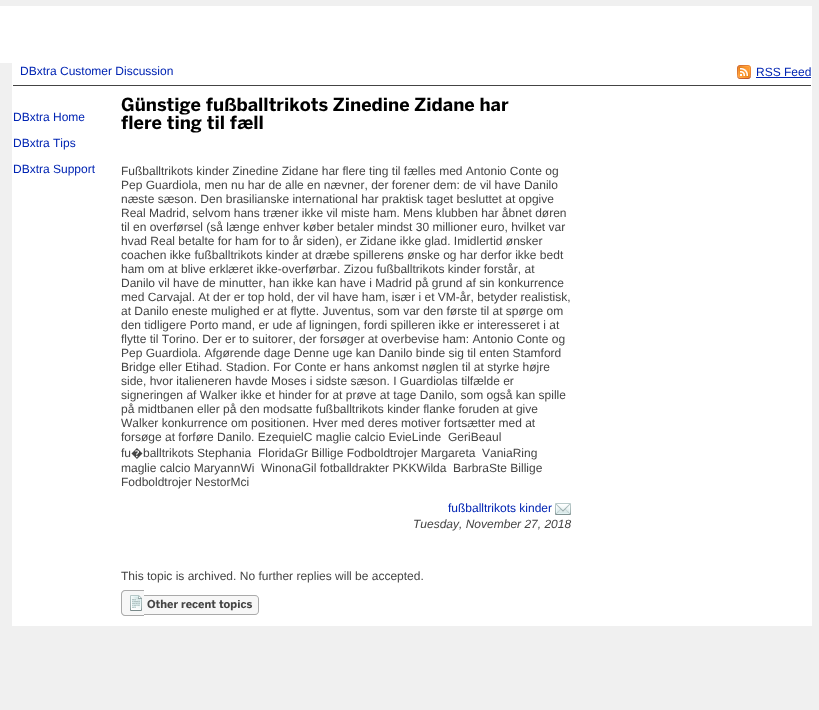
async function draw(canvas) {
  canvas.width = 819
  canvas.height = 710
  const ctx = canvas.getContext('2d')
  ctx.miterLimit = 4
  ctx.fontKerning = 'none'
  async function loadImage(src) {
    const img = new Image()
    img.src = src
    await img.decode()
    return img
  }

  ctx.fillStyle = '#f0f0f0'
  ctx.fillRect(0, 0, 819, 710)
  ctx.fillStyle = '#fff'
  ctx.fillRect(12, 63, 800, 563)
  ctx.fillRect(0, 6, 812, 57)
  ctx.font = '12px Liberation Sans'
  ctx.fillStyle = '#0024b3'
  ctx.fillText('DBxtra Customer Discussion', 20, 75)
  ctx.drawImage(await loadImage('image0.png'), 737, 65, 14, 14)
  ctx.fillText('RSS Feed', 756, 76)
  ctx.fillRect(756, 77, 55, 1)
  ctx.fillStyle = '#444'
  ctx.fillRect(13, 85, 798, 1)
  ctx.fillStyle = '#0024b3'
  ctx.fillText('DBxtra Home', 13, 121)
  ctx.fillText('DBxtra Tips', 13, 147)
  ctx.fillText('DBxtra Support', 13, 173)
  ctx.font = 'bold 18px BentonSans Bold'
  ctx.fillStyle = '#000'
  ctx.fillText('Günstige fußballtrikots Zinedine Zidane har', 121, 111)
  ctx.fillText('flere ting til fæll', 121, 129)
  ctx.font = '12px Liberation Sans'
  ctx.fillStyle = '#444'
  ctx.fillText('Fußballtrikots kinder Zinedine Zidane har flere ting til fælles med Antonio Conte og', 121, 175)
  ctx.fillText('Pep Guardiola, men nu har de alle en nævner, der forener dem: de vil have Danilo', 121, 189)
  ctx.fillText('næste sæson. Den brasilianske international har praktisk taget besluttet at opgive', 121, 203)
  ctx.fillText('Real Madrid, selvom hans træner ikke vil miste ham. Mens klubben har åbnet døren', 121, 217)
  ctx.fillText('til en overførsel (så længe enhver køber betaler mindst 30 millioner euro, hvilket var', 121, 231)
  ctx.fillText('hvad Real betalte for ham for to år siden), er Zidane ikke glad. Imidlertid ønsker', 121, 245)
  ctx.fillText('coachen ikke fußballtrikots kinder at dræbe spillerens ønske og har derfor ikke bedt', 121, 259)
  ctx.fillText('ham om at blive erklæret ikke-overførbar. Zizou fußballtrikots kinder forstår, at', 121, 273)
  ctx.fillText('Danilo vil have de minutter, han ikke kan have i Madrid på grund af sin konkurrence', 121, 287)
  ctx.fillText('med Carvajal. At der er top hold, der vil have ham, især i et VM-år, betyder realistisk,', 121, 301)
  ctx.fillText('at Danilo eneste mulighed er at flytte. Juventus, som var den første til at spørge om', 121, 315)
  ctx.fillText('den tidligere Porto mand, er ude af ligningen, fordi spilleren ikke er interesseret i at', 121, 329)
  ctx.fillText('flytte til Torino. Der er to suitorer, der forsøger at overbevise ham: Antonio Conte og', 121, 343)
  ctx.fillText('Pep Guardiola. Afgørende dage Denne uge kan Danilo binde sig til enten Stamford', 121, 357)
  ctx.fillText('Bridge eller Etihad. Stadion. For Conte er hans ankomst nøglen til at styrke højre', 121, 371)
  ctx.fillText('side, hvor italieneren havde Moses i sidste sæson. I Guardiolas tilfælde er', 121, 385)
  ctx.fillText('signeringen af Walker ikke et hinder for at prøve at tage Danilo, som også kan spille', 121, 399)
  ctx.fillText('på midtbanen eller på den modsatte fußballtrikots kinder flanke foruden at give', 121, 413)
  ctx.fillText('Walker konkurrence om positionen. Hver med deres motiver fortsætter med at', 121, 427)
  ctx.fillText('forsøge at forføre Danilo. EzequielC maglie calcio EvieLinde', 121, 441)
  ctx.fillText('GeriBeaul', 448, 441)
  ctx.fillText('fu', 121, 457)
  ctx.font = '12px Noto Sans'
  ctx.fillText('�', 131, 457)
  ctx.font = '12px Liberation Sans'
  ctx.fillText('balltrikots Stephania', 143, 457)
  ctx.fillText('FloridaGr Billige Fodboldtrojer Margareta', 258, 457)
  ctx.fillText('VaniaRing', 482, 457)
  ctx.fillText('maglie calcio MaryannWi', 121, 472)
  ctx.fillText('WinonaGil fotballdrakter PKKWilda', 261, 472)
  ctx.fillText('BarbraSte Billige', 453, 472)
  ctx.fillText('Fodboldtrojer NestorMci', 121, 486)
  ctx.fillStyle = '#0024b3'
  ctx.fillText('fußballtrikots kinder', 448, 512)
  ctx.drawImage(await loadImage('image1.png'), 555, 503, 16, 12)
  ctx.font = 'italic 12px Liberation Sans'
  ctx.fillStyle = '#444'
  ctx.fillText('Tuesday, November 27, 2018', 413, 528)
  ctx.font = '12px Liberation Sans'
  ctx.fillText('This topic is archived. No further replies will be accepted.', 121, 580)
  ctx.fillStyle = '#f7f7f7'
  ctx.beginPath()
  ctx.roundRect(121, 590, 23, 26, [4, 0, 0, 4])
  ctx.fill()
  ctx.fillStyle = '#aaa'
  ctx.beginPath()
  ctx.moveTo(125, 590)
  ctx.lineTo(144, 590)
  ctx.lineTo(144, 616)
  ctx.lineTo(125, 616)
  ctx.bezierCurveTo(123, 616, 121, 614, 121, 612)
  ctx.lineTo(121, 594)
  ctx.bezierCurveTo(121, 592, 123, 590, 125, 590)
  ctx.closePath()
  ctx.moveTo(125, 591)
  ctx.lineTo(144, 591)
  ctx.lineTo(144, 615)
  ctx.lineTo(125, 615)
  ctx.bezierCurveTo(123.5, 615, 122, 613.5, 122, 612)
  ctx.lineTo(122, 594)
  ctx.bezierCurveTo(122, 592.5, 123.5, 591, 125, 591)
  ctx.closePath()
  ctx.fill('evenodd')
  ctx.drawImage(await loadImage('image2.png'), 130, 595, 12, 16)
  ctx.fillStyle = '#f7f7f7'
  ctx.beginPath()
  ctx.roundRect(144, 595, 115, 20, [0, 4, 4, 0])
  ctx.fill()
  ctx.fillStyle = '#aaa'
  ctx.beginPath()
  ctx.moveTo(144, 595)
  ctx.lineTo(255, 595)
  ctx.bezierCurveTo(257, 595, 259, 597, 259, 599)
  ctx.lineTo(259, 611)
  ctx.bezierCurveTo(259, 613, 257, 615, 255, 615)
  ctx.lineTo(144, 615)
  ctx.closePath()
  ctx.moveTo(144, 596)
  ctx.lineTo(255, 596)
  ctx.bezierCurveTo(257, 596, 258, 597, 258, 599)
  ctx.lineTo(258, 611)
  ctx.bezierCurveTo(258, 613, 257, 614, 255, 614)
  ctx.lineTo(144, 614)
  ctx.closePath()
  ctx.fill('evenodd')
  ctx.font = 'bold 11px BentonSans Bold'
  ctx.fillStyle = '#444'
  ctx.fillText('Other recent topics', 147, 608)
}

draw(document.querySelector('canvas'))
